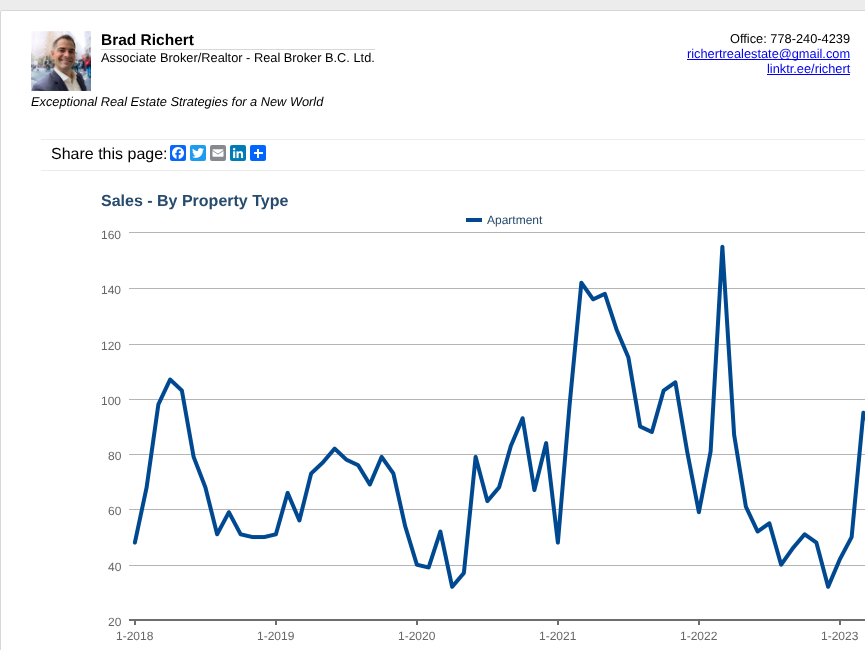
async function draw(canvas) {
  canvas.width = 865
  canvas.height = 650
  const ctx = canvas.getContext('2d')
  ctx.miterLimit = 4
  ctx.fontKerning = 'normal'
  async function loadImage(src) {
    const img = new Image()
    img.src = src
    await img.decode()
    return img
  }

  ctx.fillStyle = '#ececec'
  ctx.fillRect(0, 0, 865, 650)
  ctx.fillStyle = '#fff'
  ctx.beginPath()
  ctx.roundRect(0.5, 10.5, 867, 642, 1.5)
  ctx.fill()
  ctx.strokeStyle = '#d7d7d7'
  ctx.stroke()
  ctx.drawImage(await loadImage('image0.png'), 31, 31, 60, 60)
  ctx.fillStyle = '#d7d7d7'
  ctx.fillRect(101, 49, 274, 1)
  ctx.font = 'bold 15.5px Liberation Sans'
  ctx.fillStyle = '#000'
  ctx.fillText('Brad Richert', 101, 45)
  ctx.font = '12.8px Liberation Sans'
  ctx.fillText('Associate Broker/Realtor - Real Broker B.C. Ltd.', 101, 62)
  ctx.fillText('Office: 778-240-4239', 730, 43)
  ctx.fillStyle = '#00e'
  ctx.fillRect(687, 59, 163, 1)
  ctx.fillText('richertrealestate@gmail.com', 687, 58)
  ctx.fillText('linktr.ee/richert', 767, 73)
  ctx.fillRect(767, 74, 83, 1)
  ctx.font = 'italic 12.8px Liberation Sans'
  ctx.fillStyle = '#000'
  ctx.fillText('Exceptional Real Estate Strategies for a New World', 31, 106)
  ctx.fillStyle = '#ececec'
  ctx.fillRect(41, 139, 824, 1)
  ctx.fillRect(41, 170, 824, 1)
  ctx.font = '16px Liberation Sans'
  ctx.fillStyle = '#000'
  ctx.fillText('Share this page:', 51, 159)
  ctx.fillStyle = '#0866ff'
  ctx.beginPath()
  ctx.roundRect(170, 145, 16, 16, 2)
  ctx.fill()
  ctx.drawImage(await loadImage('image1.png'), 172, 147, 12, 12)
  ctx.fillStyle = '#1d9bf0'
  ctx.beginPath()
  ctx.roundRect(190, 145, 16, 16, 2)
  ctx.fill()
  ctx.drawImage(await loadImage('image2.png'), 192, 148, 12, 10)
  ctx.fillStyle = '#888990'
  ctx.beginPath()
  ctx.roundRect(210, 145, 16, 16, 2)
  ctx.fill()
  ctx.drawImage(await loadImage('image3.png'), 212, 149, 12, 8)
  ctx.fillStyle = '#007bb5'
  ctx.beginPath()
  ctx.roundRect(230, 145, 16, 16, 2)
  ctx.fill()
  ctx.drawImage(await loadImage('image4.png'), 233, 148, 11, 11)
  ctx.fillStyle = '#0166ff'
  ctx.beginPath()
  ctx.roundRect(250, 145, 16, 16, 2)
  ctx.fill()
  ctx.fillStyle = '#fff'
  ctx.fillRect(257, 149, 2, 9)
  ctx.fillRect(254, 152, 9, 2)
  ctx.font = 'bold 16px Liberation Sans'
  ctx.fillStyle = '#274b6d'
  ctx.fillText('Sales - By Property Type', 101, 206)
  ctx.drawImage(await loadImage('image5.png'), 129, 218, 736, 407)
  ctx.font = '12px Liberation Sans'
  ctx.fillText('Apartment', 487, 224)
  ctx.fillStyle = '#666'
  ctx.fillText('160', 101, 239)
  ctx.fillText('140', 101, 294)
  ctx.fillText('120', 101, 350)
  ctx.fillText('100', 101, 405)
  ctx.fillText('80', 108, 460)
  ctx.fillText('60', 108, 515)
  ctx.fillText('40', 108, 571)
  ctx.fillText('20', 108, 626)
  ctx.fillText('1-2018', 116, 640)
  ctx.fillText('1-2019', 257, 640)
  ctx.fillText('1-2020', 398, 640)
  ctx.fillText('1-2021', 539, 640)
  ctx.fillText('1-2022', 680, 640)
  ctx.fillText('1-2023', 821, 640)
}

draw(document.querySelector('canvas'))
